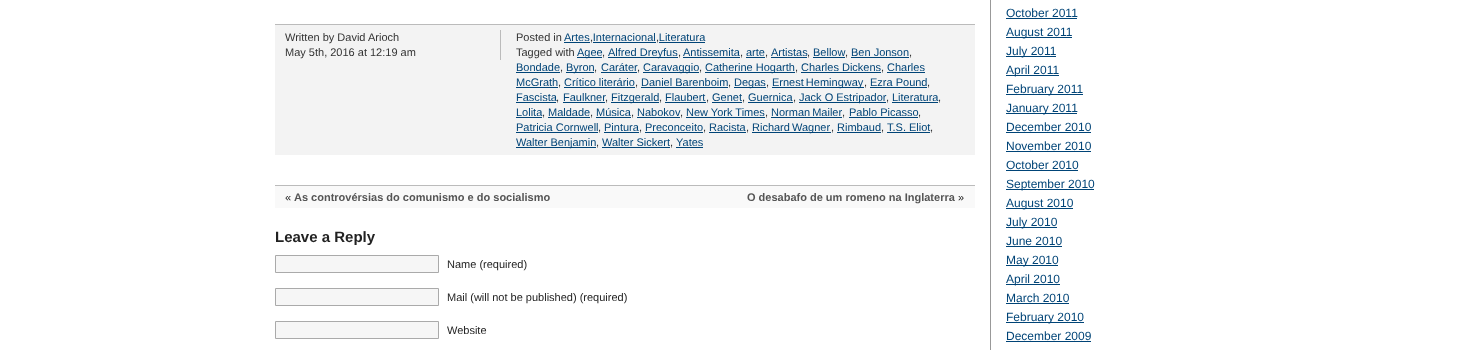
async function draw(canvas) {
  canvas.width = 1460
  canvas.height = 350
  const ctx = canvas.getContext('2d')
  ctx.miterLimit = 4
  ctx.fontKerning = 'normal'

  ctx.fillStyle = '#fff'
  ctx.fillRect(0, 0, 1460, 350)
  ctx.fillStyle = '#f3f3f3'
  ctx.fillRect(275, 25, 700, 130)
  ctx.fillStyle = '#bbb'
  ctx.fillRect(275, 24, 700, 1)
  ctx.fillRect(500, 30, 1, 30)
  ctx.font = '11px Liberation Sans'
  ctx.fillStyle = '#333'
  ctx.fillText('Written by David Arioch', 285, 41)
  ctx.fillText('May 5th, 2016 at 12:19 am', 285, 56)
  ctx.fillText('Posted in', 516, 41)
  ctx.fillStyle = '#047'
  ctx.fillText('Artes Internacional Literatura', 564, 41)
  ctx.fillRect(564, 42, 26, 1)
  ctx.fillStyle = '#333'
  ctx.fillText(',', 590, 41)
  ctx.fillStyle = '#047'
  ctx.fillRect(593, 42, 63, 1)
  ctx.fillStyle = '#333'
  ctx.fillText(',', 656, 41)
  ctx.fillStyle = '#047'
  ctx.fillRect(659, 42, 46, 1)
  ctx.fillStyle = '#333'
  ctx.fillText('Tagged with', 516, 56)
  ctx.fillStyle = '#047'
  ctx.fillRect(577, 57, 25, 1)
  ctx.fillText('Agee', 577, 56)
  ctx.fillStyle = '#333'
  ctx.fillText(',', 602, 56)
  ctx.fillStyle = '#047'
  ctx.fillRect(608, 57, 70, 1)
  ctx.fillText('Alfred Dreyfus', 608, 56)
  ctx.fillStyle = '#333'
  ctx.fillText(',', 678, 56)
  ctx.fillStyle = '#047'
  ctx.fillText('Antissemita', 683, 56)
  ctx.fillRect(683, 57, 57, 1)
  ctx.fillStyle = '#333'
  ctx.fillText(',', 740, 56)
  ctx.fillStyle = '#047'
  ctx.fillText('arte', 746, 56)
  ctx.fillRect(746, 57, 19, 1)
  ctx.fillStyle = '#333'
  ctx.fillText(',', 765, 56)
  ctx.fillStyle = '#047'
  ctx.fillText('Artistas', 771, 56)
  ctx.fillRect(771, 57, 36, 1)
  ctx.fillStyle = '#333'
  ctx.fillText(',', 807, 56)
  ctx.fillStyle = '#047'
  ctx.fillText('Bellow', 813, 56)
  ctx.fillRect(813, 57, 32, 1)
  ctx.fillStyle = '#333'
  ctx.fillText(',', 845, 56)
  ctx.fillStyle = '#047'
  ctx.fillText('Ben Jonson', 851, 56)
  ctx.fillRect(851, 57, 58, 1)
  ctx.fillStyle = '#333'
  ctx.fillText(',', 909, 56)
  ctx.fillStyle = '#047'
  ctx.fillText('Bondade', 516, 71)
  ctx.fillRect(516, 72, 44, 1)
  ctx.fillStyle = '#333'
  ctx.fillText(',', 560, 71)
  ctx.fillStyle = '#047'
  ctx.fillRect(566, 72, 28, 1)
  ctx.fillText('Byron', 566, 71)
  ctx.fillStyle = '#333'
  ctx.fillText(',', 594, 71)
  ctx.fillStyle = '#047'
  ctx.fillText('Caráter', 601, 71)
  ctx.fillRect(601, 72, 36, 1)
  ctx.fillRect(643, 72, 56, 1)
  ctx.fillText('Caravaggio', 643, 71)
  ctx.fillRect(705, 72, 90, 1)
  ctx.fillText('Catherine Hogarth', 705, 71)
  ctx.fillText('Charles Dickens', 801, 71)
  ctx.fillRect(801, 72, 80, 1)
  ctx.fillText('Charles', 887, 71)
  ctx.fillRect(887, 72, 38, 1)
  ctx.fillStyle = '#333'
  ctx.fillText(',', 637, 71)
  ctx.fillText(',', 699, 71)
  ctx.fillText(',', 795, 71)
  ctx.fillText(',', 881, 71)
  ctx.fillStyle = '#047'
  ctx.fillText('McGrath', 516, 86)
  ctx.fillRect(516, 87, 42, 1)
  ctx.fillStyle = '#333'
  ctx.fillText(',', 558, 86)
  ctx.fillStyle = '#047'
  ctx.fillText('Crítico literário', 564, 86)
  ctx.fillRect(564, 87, 71, 1)
  ctx.fillStyle = '#333'
  ctx.fillText(',', 635, 86)
  ctx.fillStyle = '#047'
  ctx.fillText('Daniel Barenboim', 641, 86)
  ctx.fillRect(641, 87, 87, 1)
  ctx.fillStyle = '#333'
  ctx.fillText(',', 728, 86)
  ctx.fillStyle = '#047'
  ctx.fillRect(734, 87, 32, 1)
  ctx.fillText('Degas', 734, 86)
  ctx.fillStyle = '#333'
  ctx.fillText(',', 766, 86)
  ctx.fillStyle = '#047'
  ctx.fillRect(772, 87, 92, 1)
  ctx.wordSpacing = '-1px'
  ctx.fillText('Ernest Hemingway', 772, 86)
  ctx.wordSpacing = '0px'
  ctx.fillStyle = '#333'
  ctx.fillText(',', 864, 86)
  ctx.fillStyle = '#047'
  ctx.fillText('Ezra Pound', 870, 86)
  ctx.fillRect(870, 87, 57, 1)
  ctx.fillStyle = '#333'
  ctx.fillText(',', 927, 86)
  ctx.fillStyle = '#047'
  ctx.fillText('Fascista', 516, 101)
  ctx.fillRect(516, 102, 40, 1)
  ctx.fillStyle = '#333'
  ctx.fillText(',', 556, 101)
  ctx.fillStyle = '#047'
  ctx.fillText('Faulkner', 563, 101)
  ctx.fillRect(563, 102, 42, 1)
  ctx.fillRect(611, 102, 48, 1)
  ctx.fillText('Fitzgerald', 611, 101)
  ctx.fillText('Flaubert', 665, 101)
  ctx.fillRect(665, 102, 41, 1)
  ctx.fillText('Genet', 712, 101)
  ctx.fillRect(712, 102, 30, 1)
  ctx.fillText('Guernica', 748, 101)
  ctx.fillRect(748, 102, 45, 1)
  ctx.fillRect(799, 102, 87, 1)
  ctx.fillText('Jack O Estripador', 799, 101)
  ctx.fillText('Literatura', 892, 101)
  ctx.fillRect(892, 102, 46, 1)
  ctx.fillStyle = '#333'
  ctx.fillText(',', 605, 101)
  ctx.fillText(',', 659, 101)
  ctx.fillText(',', 706, 101)
  ctx.fillText(',', 742, 101)
  ctx.fillText(',', 793, 101)
  ctx.fillText(',', 886, 101)
  ctx.fillText(',', 938, 101)
  ctx.fillStyle = '#047'
  ctx.fillText('Lolita', 516, 116)
  ctx.fillRect(516, 117, 26, 1)
  ctx.fillStyle = '#333'
  ctx.fillText(',', 542, 116)
  ctx.fillStyle = '#047'
  ctx.fillText('Maldade', 548, 116)
  ctx.fillRect(548, 117, 42, 1)
  ctx.fillStyle = '#333'
  ctx.fillText(',', 590, 116)
  ctx.fillStyle = '#047'
  ctx.fillText('Música', 596, 116)
  ctx.fillRect(596, 117, 35, 1)
  ctx.fillStyle = '#333'
  ctx.fillText(',', 631, 116)
  ctx.fillStyle = '#047'
  ctx.fillText('Nabokov', 637, 116)
  ctx.fillRect(637, 117, 43, 1)
  ctx.fillText('New York Times', 686, 116)
  ctx.fillRect(686, 117, 79, 1)
  ctx.wordSpacing = '-1px'
  ctx.fillText('Norman Mailer', 771, 116)
  ctx.fillRect(771, 117, 71, 1)
  ctx.wordSpacing = '0px'
  ctx.fillText('Pablo Picasso', 849, 116)
  ctx.fillRect(849, 117, 69, 1)
  ctx.fillStyle = '#333'
  ctx.fillText(',', 680, 116)
  ctx.fillText(',', 765, 116)
  ctx.fillText(',', 842, 116)
  ctx.fillText(',', 918, 116)
  ctx.fillStyle = '#047'
  ctx.fillText('Patricia Cornwell', 516, 131)
  ctx.fillRect(516, 132, 82, 1)
  ctx.fillStyle = '#333'
  ctx.fillText(',', 598, 131)
  ctx.fillStyle = '#047'
  ctx.fillText('Pintura', 604, 131)
  ctx.fillRect(604, 132, 35, 1)
  ctx.fillStyle = '#333'
  ctx.fillText(',', 639, 131)
  ctx.fillStyle = '#047'
  ctx.fillText('Preconceito', 645, 131)
  ctx.fillRect(645, 132, 58, 1)
  ctx.fillStyle = '#333'
  ctx.fillText(',', 703, 131)
  ctx.fillStyle = '#047'
  ctx.fillText('Racista', 709, 131)
  ctx.fillRect(709, 132, 37, 1)
  ctx.fillStyle = '#333'
  ctx.fillText(',', 746, 131)
  ctx.fillStyle = '#047'
  ctx.fillRect(752, 132, 79, 1)
  ctx.wordSpacing = '-1px'
  ctx.fillText('Richard Wagner', 752, 131)
  ctx.wordSpacing = '0px'
  ctx.fillStyle = '#333'
  ctx.fillText(',', 831, 131)
  ctx.fillStyle = '#047'
  ctx.fillText('Rimbaud', 837, 131)
  ctx.fillRect(837, 132, 44, 1)
  ctx.fillStyle = '#333'
  ctx.fillText(',', 881, 131)
  ctx.fillStyle = '#047'
  ctx.fillText('T.S. Eliot', 887, 131)
  ctx.fillRect(887, 132, 43, 1)
  ctx.fillStyle = '#333'
  ctx.fillText(',', 930, 131)
  ctx.fillStyle = '#047'
  ctx.fillRect(516, 147, 80, 1)
  ctx.fillText('Walter Benjamin', 516, 146)
  ctx.fillStyle = '#333'
  ctx.fillText(',', 596, 146)
  ctx.fillStyle = '#047'
  ctx.fillText('Walter Sickert', 602, 146)
  ctx.fillRect(602, 147, 68, 1)
  ctx.fillStyle = '#333'
  ctx.fillText(',', 670, 146)
  ctx.fillStyle = '#047'
  ctx.fillText('Yates', 676, 146)
  ctx.fillRect(676, 147, 27, 1)
  ctx.fillStyle = '#f9f9f9'
  ctx.fillRect(275, 186, 700, 22)
  ctx.fillStyle = '#bbb'
  ctx.fillRect(275, 185, 700, 1)
  ctx.fillStyle = '#222'
  ctx.fillText('«', 285, 201)
  ctx.font = 'bold 11px Liberation Sans'
  ctx.fillStyle = '#555'
  ctx.fillText('As controvérsias do comunismo e do socialismo', 294, 201)
  ctx.fillText('O desabafo de um romeno na Inglaterra', 747, 201)
  ctx.font = '11px Liberation Sans'
  ctx.fillStyle = '#222'
  ctx.fillText('»', 958, 201)
  ctx.font = 'bold 15px Liberation Sans'
  ctx.fillText('Leave a Reply', 275, 242)
  ctx.fillStyle = '#f6f6f6'
  ctx.beginPath()
  ctx.rect(275.5, 255.5, 163, 17)
  ctx.fill()
  ctx.strokeStyle = '#aaa'
  ctx.stroke()
  ctx.font = '11px Liberation Sans'
  ctx.fillStyle = '#222'
  ctx.fillText('Name (required)', 447, 268)
  ctx.fillStyle = '#f6f6f6'
  ctx.beginPath()
  ctx.rect(275.5, 288.5, 163, 17)
  ctx.fill()
  ctx.stroke()
  ctx.fillStyle = '#222'
  ctx.fillText('Mail (will not be published) (required)', 447, 301)
  ctx.fillStyle = '#f6f6f6'
  ctx.beginPath()
  ctx.rect(275.5, 321.5, 163, 17)
  ctx.fill()
  ctx.stroke()
  ctx.fillStyle = '#222'
  ctx.fillText('Website', 447, 334)
  ctx.fillStyle = '#999'
  ctx.fillRect(990, 0, 1, 350)
  ctx.font = '12px Liberation Sans'
  ctx.fillStyle = '#047'
  ctx.fillText('October 2011', 1006, 17)
  ctx.fillRect(1006, 18, 71, 1)
  ctx.fillRect(1006, 37, 66, 1)
  ctx.fillText('August 2011', 1006, 36)
  ctx.fillRect(1006, 56, 50, 1)
  ctx.fillText('July 2011', 1006, 55)
  ctx.fillRect(1006, 75, 53, 1)
  ctx.fillText('April 2011', 1006, 74)
  ctx.fillRect(1006, 94, 77, 1)
  ctx.fillText('February 2011', 1006, 93)
  ctx.fillRect(1006, 113, 71, 1)
  ctx.fillText('January 2011', 1006, 112)
  ctx.fillText('December 2010', 1006, 131)
  ctx.fillRect(1006, 132, 85, 1)
  ctx.fillText('November 2010', 1006, 150)
  ctx.fillRect(1006, 151, 85, 1)
  ctx.fillText('October 2010', 1006, 169)
  ctx.fillRect(1006, 170, 72, 1)
  ctx.fillRect(1006, 189, 88, 1)
  ctx.fillText('September 2010', 1006, 188)
  ctx.fillRect(1006, 208, 67, 1)
  ctx.fillText('August 2010', 1006, 207)
  ctx.fillRect(1006, 227, 51, 1)
  ctx.fillText('July 2010', 1006, 226)
  ctx.fillText('June 2010', 1006, 245)
  ctx.fillRect(1006, 246, 56, 1)
  ctx.fillRect(1006, 265, 52, 1)
  ctx.fillText('May 2010', 1006, 264)
  ctx.fillRect(1006, 284, 54, 1)
  ctx.fillText('April 2010', 1006, 283)
  ctx.fillText('March 2010', 1006, 302)
  ctx.fillRect(1006, 303, 63, 1)
  ctx.fillRect(1006, 322, 78, 1)
  ctx.fillText('February 2010', 1006, 321)
  ctx.fillText('December 2009', 1006, 340)
  ctx.fillRect(1006, 341, 85, 1)
}

draw(document.querySelector('canvas'))
